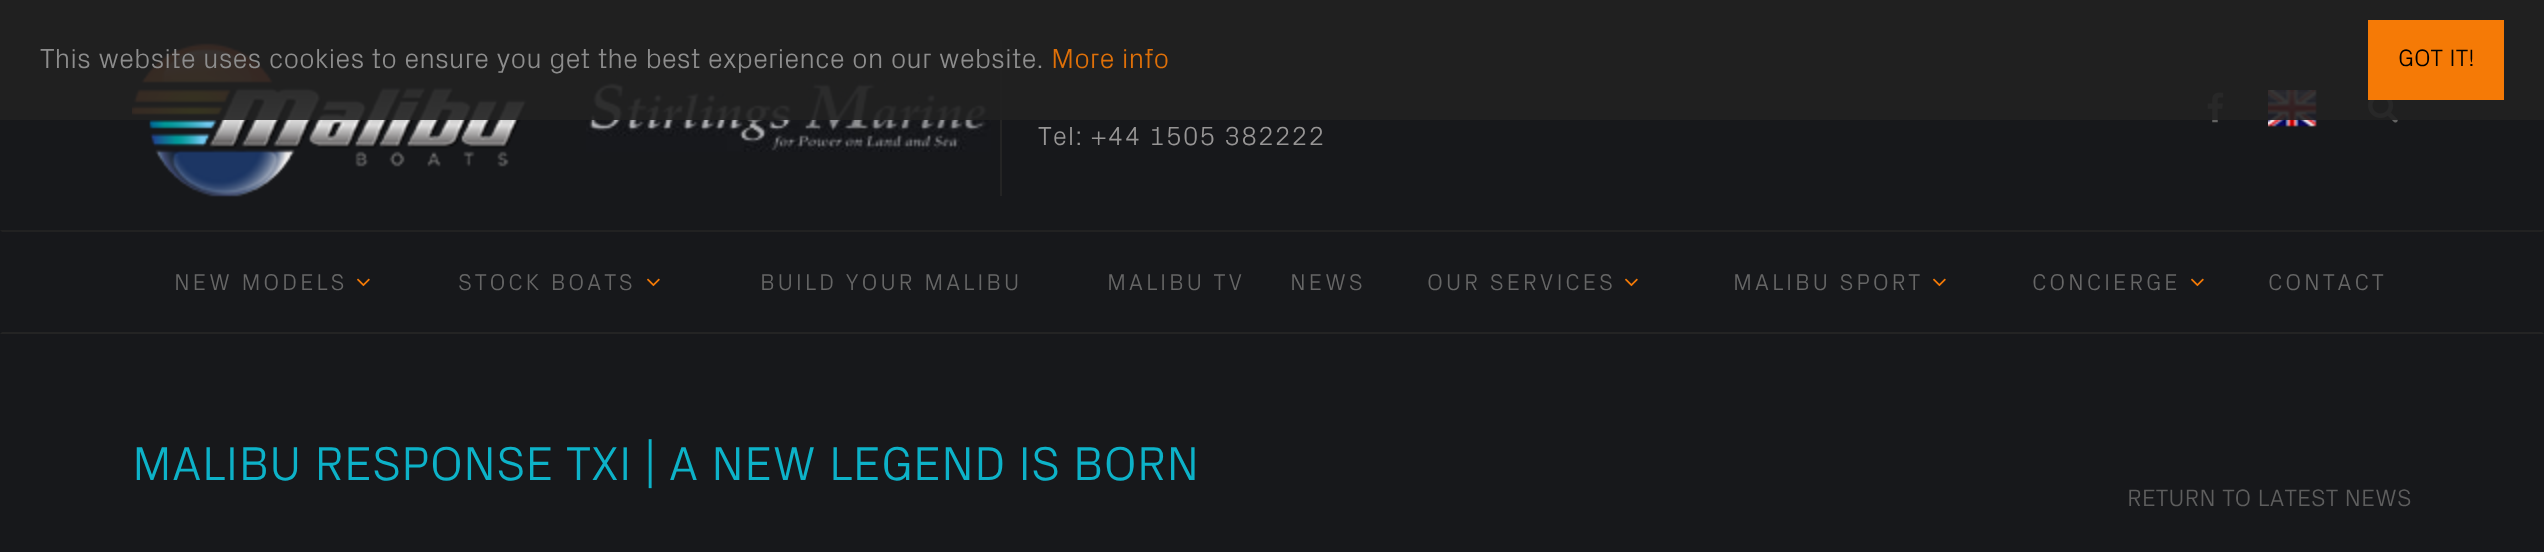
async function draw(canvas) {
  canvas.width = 2544
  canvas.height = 552
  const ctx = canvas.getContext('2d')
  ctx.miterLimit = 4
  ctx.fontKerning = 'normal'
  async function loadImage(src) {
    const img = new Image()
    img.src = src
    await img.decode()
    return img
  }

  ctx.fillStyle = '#17181b'
  ctx.fillRect(0, 0, 2544, 552)
  ctx.drawImage(await loadImage('image0.png'), 132, 43, 395, 154)
  ctx.drawImage(await loadImage('image1.png'), 586, 75, 405, 77)
  ctx.drawImage(await loadImage('image2.png'), 2207, 92, 17, 31)
  ctx.drawImage(await loadImage('image3.png'), 2268, 90, 49, 37)
  ctx.drawImage(await loadImage('image4.png'), 2368, 100, 30, 23)
  ctx.fillStyle = '#242424'
  ctx.fillRect(1000, 40, 2, 156)
  ctx.fillStyle = '#212121e6'
  ctx.fillRect(0, 0, 2544, 120)
  ctx.font = '300 28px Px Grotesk'
  ctx.fillStyle = '#8d8d8d'
  ctx.fillText('This website uses cookies to ensure you get the best experience on our website.', 40, 68)
  ctx.fillStyle = '#df7008'
  ctx.fillText('More info', 1051, 68)
  ctx.fillStyle = '#f57a06'
  ctx.fillRect(2368, 20, 136, 80)
  ctx.font = '300 24px Px Grotesk'
  ctx.fillStyle = '#000'
  ctx.fillText('GOT IT!', 2398, 66)
  ctx.letterSpacing = '1px'
  ctx.font = '300 26.4px Px Grotesk'
  ctx.fillStyle = '#979595'
  ctx.fillText('Tel: +44 1505 382222', 1038, 145)
  ctx.fillStyle = '#222'
  ctx.beginPath()
  ctx.moveTo(0, 230)
  ctx.lineTo(2544, 230)
  ctx.lineTo(2542, 232)
  ctx.lineTo(2, 232)
  ctx.closePath()
  ctx.fill()
  ctx.fillStyle = '#242424'
  ctx.beginPath()
  ctx.moveTo(2544, 334)
  ctx.lineTo(0, 334)
  ctx.lineTo(2, 332)
  ctx.lineTo(2542, 332)
  ctx.closePath()
  ctx.fill()
  ctx.letterSpacing = '2.75px'
  ctx.font = '300 23px Px Grotesk'
  ctx.fillStyle = '#666'
  ctx.fillText('NEW MODELS', 174, 290)
  ctx.drawImage(await loadImage('image5.png'), 357, 278, 13, 9)
  ctx.fillText('STOCK BOATS', 458, 290)
  ctx.drawImage(await loadImage('image5.png'), 647, 278, 13, 9)
  ctx.fillText('BUILD YOUR MALIBU', 760, 290)
  ctx.fillText('MALIBU TV', 1107, 290)
  ctx.fillText('NEWS', 1290, 290)
  ctx.fillText('OUR SERVICES', 1427, 290)
  ctx.drawImage(await loadImage('image5.png'), 1625, 278, 13, 9)
  ctx.fillText('MALIBU SPORT', 1733, 290)
  ctx.drawImage(await loadImage('image5.png'), 1933, 278, 13, 9)
  ctx.fillText('CONCIERGE', 2032, 290)
  ctx.drawImage(await loadImage('image5.png'), 2191, 278, 13, 9)
  ctx.fillText('CONTACT', 2268, 290)
  ctx.letterSpacing = '0px'
  ctx.font = '300 48px Px Grotesk'
  ctx.fillStyle = '#0db2c8'
  ctx.fillText('MALIBU RESPONSE TXI | A NEW LEGEND IS BORN', 132, 480)
  ctx.font = '300 24px Px Grotesk'
  ctx.fillStyle = '#5e5e5e'
  ctx.fillText('RETURN TO LATEST NEWS', 2127, 506)
}

draw(document.querySelector('canvas'))
